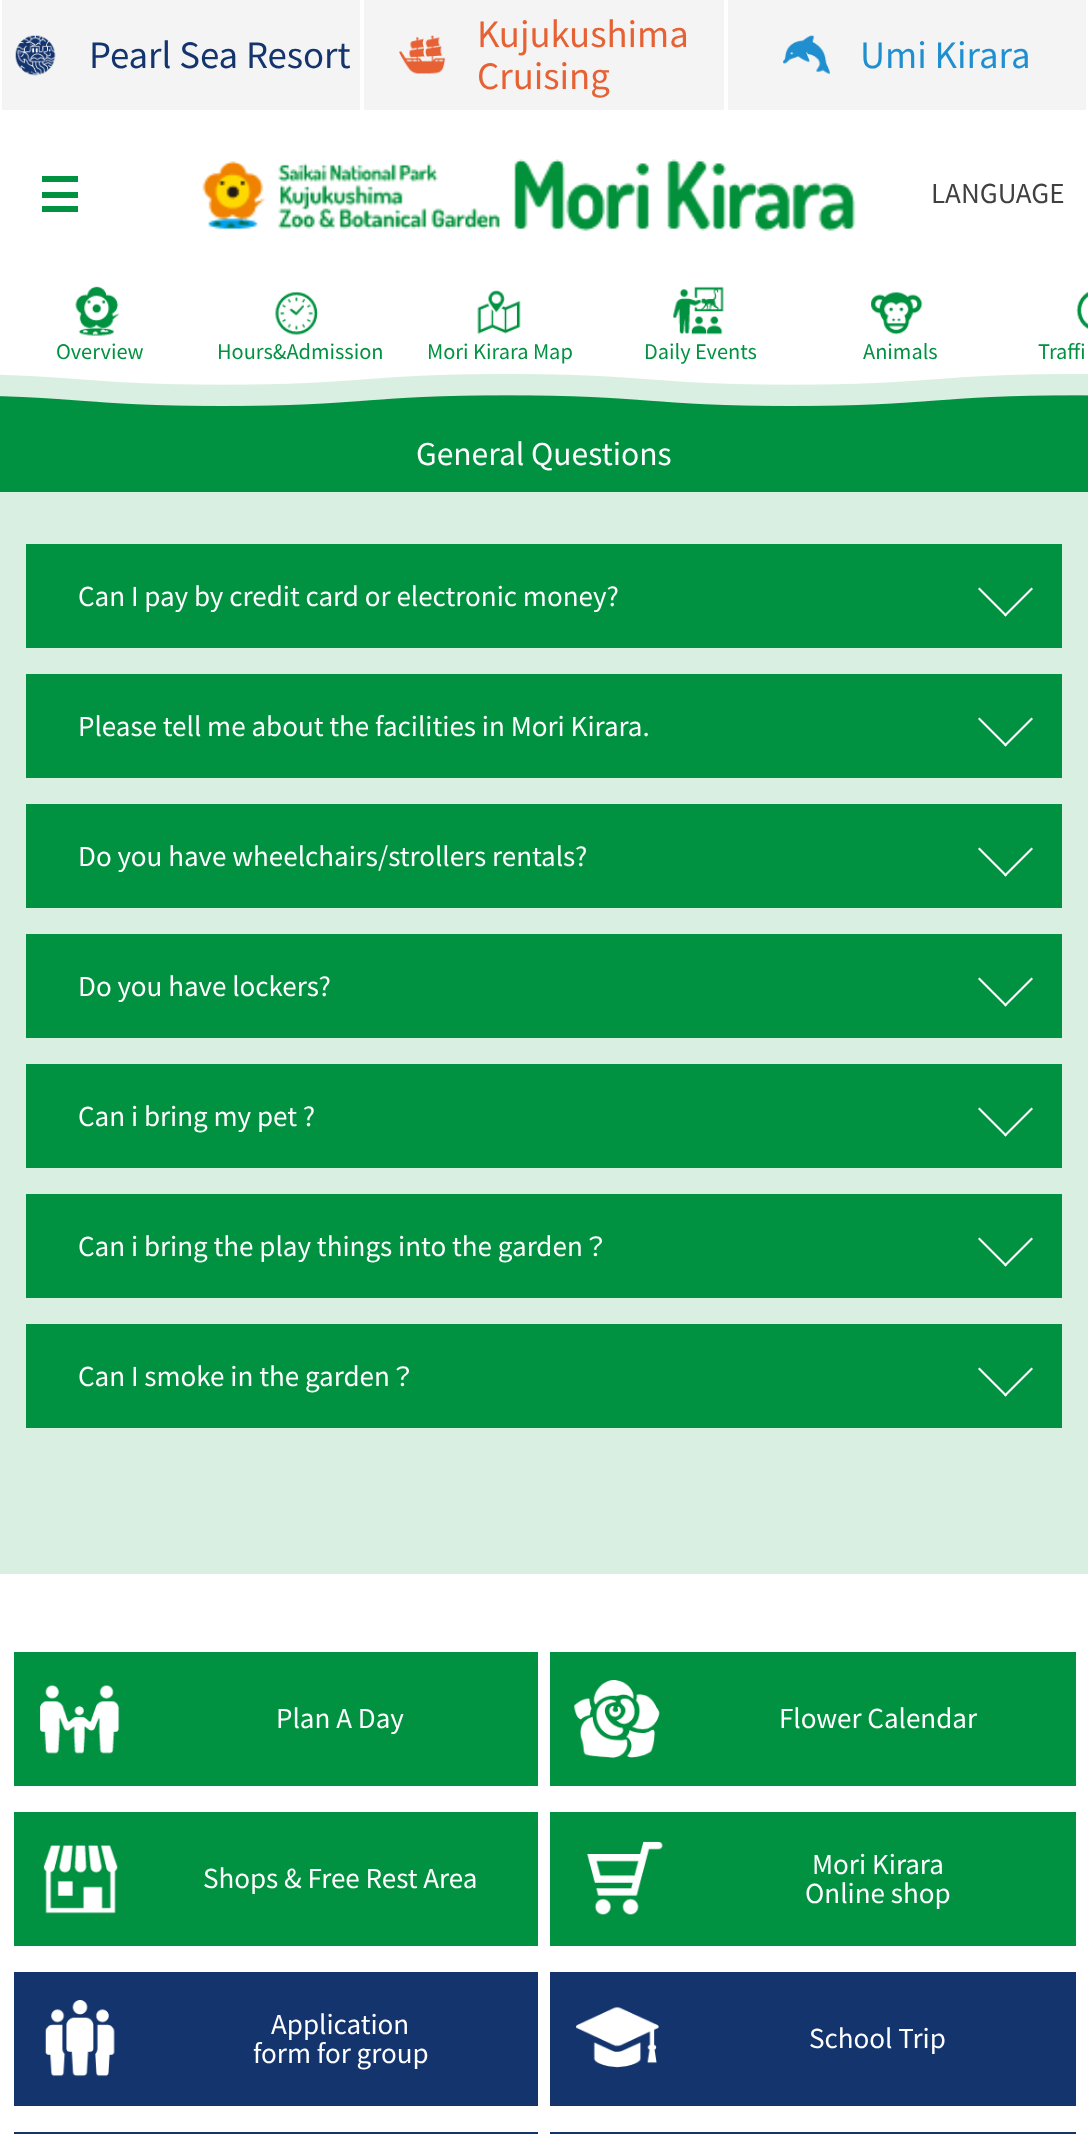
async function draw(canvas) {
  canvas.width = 1088
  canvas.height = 2134
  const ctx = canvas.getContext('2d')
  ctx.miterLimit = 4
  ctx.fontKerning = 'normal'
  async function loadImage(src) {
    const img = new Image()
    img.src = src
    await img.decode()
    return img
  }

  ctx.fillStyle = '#fff'
  ctx.fillRect(0, 0, 1088, 2134)
  ctx.fillStyle = '#f4f4f4'
  ctx.fillRect(2, 0, 358, 110)
  ctx.drawImage(await loadImage('image0.png'), 15, 35, 41, 41)
  ctx.font = '34.75px Noto Sans JP'
  ctx.fillStyle = '#14346e'
  ctx.fillText('Pearl Sea Resort', 89, 68)
  ctx.fillStyle = '#f4f4f4'
  ctx.fillRect(364, 0, 360, 110)
  ctx.drawImage(await loadImage('image1.png'), 399, 35, 47, 39)
  ctx.fillStyle = '#e66133'
  ctx.fillText('Kujukushima', 477, 47)
  ctx.fillText('Cruising', 477, 89)
  ctx.fillStyle = '#f4f4f4'
  ctx.fillRect(728, 0, 358, 110)
  ctx.drawImage(await loadImage('image2.png'), 783, 35, 47, 40)
  ctx.fillStyle = '#208fd0'
  ctx.fillText('Umi Kirara', 860, 68)
  ctx.fillStyle = '#009240'
  ctx.fillRect(42, 176, 36, 6)
  ctx.fillRect(42, 192, 36, 6)
  ctx.fillRect(42, 206, 36, 6)
  ctx.drawImage(await loadImage('image3.png'), 202, 159, 654, 73)
  ctx.font = '26px Noto Sans JP'
  ctx.fillStyle = '#404040'
  ctx.fillText('LANGUAGE', 931, 203)
  ctx.drawImage(await loadImage('image4.png'), 75, 286, 45, 50)
  ctx.font = '20px Noto Sans JP'
  ctx.fillStyle = '#009240'
  ctx.fillText('Overview', 56, 359)
  ctx.drawImage(await loadImage('image5.png'), 275, 291, 44, 44)
  ctx.fillText('Hours&Admission', 217, 359)
  ctx.drawImage(await loadImage('image6.png'), 477, 290, 44, 44)
  ctx.fillText('Mori Kirara Map', 427, 359)
  ctx.drawImage(await loadImage('image7.png'), 673, 286, 51, 49)
  ctx.fillText('Daily Events', 644, 359)
  ctx.drawImage(await loadImage('image8.png'), 871, 292, 52, 43)
  ctx.fillText('Animals', 863, 359)
  ctx.drawImage(await loadImage('image9.png'), 1076, 291, 12, 38)
  ctx.fillText('Traffi', 1038, 359)
  ctx.fillRect(0, 395, 1088, 97)
  ctx.drawImage(await loadImage('image10.png'), 0, 374, 1088, 32)
  ctx.fillStyle = '#d9efe2'
  ctx.fillRect(0, 492, 1088, 1082)
  ctx.font = '30px Noto Sans JP'
  ctx.fillStyle = '#fff'
  ctx.fillText('General Questions', 416, 465)
  ctx.fillStyle = '#009240'
  ctx.fillRect(26, 544, 1036, 104)
  ctx.font = '26px Noto Sans JP'
  ctx.fillStyle = '#fff'
  ctx.fillText('Can I pay by credit card or electronic money?', 78, 606)
  ctx.beginPath()
  ctx.moveTo(1004, 615)
  ctx.lineTo(1031.5, 587.5)
  ctx.lineTo(1033, 589)
  ctx.lineTo(1005.5, 616.5)
  ctx.closePath()
  ctx.fill()
  ctx.beginPath()
  ctx.moveTo(978, 589)
  ctx.lineTo(979.5, 587.5)
  ctx.lineTo(1007, 615)
  ctx.lineTo(1005.5, 616.5)
  ctx.closePath()
  ctx.fill()
  ctx.fillStyle = '#009240'
  ctx.fillRect(26, 674, 1036, 104)
  ctx.fillStyle = '#fff'
  ctx.fillText('Please tell me about the facilities in Mori Kirara.', 78, 736)
  ctx.beginPath()
  ctx.moveTo(1004, 745)
  ctx.lineTo(1031.5, 717.5)
  ctx.lineTo(1033, 719)
  ctx.lineTo(1005.5, 746.5)
  ctx.closePath()
  ctx.fill()
  ctx.beginPath()
  ctx.moveTo(978, 719)
  ctx.lineTo(979.5, 717.5)
  ctx.lineTo(1007, 745)
  ctx.lineTo(1005.5, 746.5)
  ctx.closePath()
  ctx.fill()
  ctx.fillStyle = '#009240'
  ctx.fillRect(26, 804, 1036, 104)
  ctx.fillStyle = '#fff'
  ctx.fillText('Do you have wheelchairs/strollers rentals?', 78, 866)
  ctx.beginPath()
  ctx.moveTo(1004, 875)
  ctx.lineTo(1031.5, 847.5)
  ctx.lineTo(1033, 849)
  ctx.lineTo(1005.5, 876.5)
  ctx.closePath()
  ctx.fill()
  ctx.beginPath()
  ctx.moveTo(978, 849)
  ctx.lineTo(979.5, 847.5)
  ctx.lineTo(1007, 875)
  ctx.lineTo(1005.5, 876.5)
  ctx.closePath()
  ctx.fill()
  ctx.fillStyle = '#009240'
  ctx.fillRect(26, 934, 1036, 104)
  ctx.fillStyle = '#fff'
  ctx.fillText('Do you have lockers?', 78, 996)
  ctx.beginPath()
  ctx.moveTo(1004, 1005)
  ctx.lineTo(1031.5, 977.5)
  ctx.lineTo(1033, 979)
  ctx.lineTo(1005.5, 1006.5)
  ctx.closePath()
  ctx.fill()
  ctx.beginPath()
  ctx.moveTo(978, 979)
  ctx.lineTo(979.5, 977.5)
  ctx.lineTo(1007, 1005)
  ctx.lineTo(1005.5, 1006.5)
  ctx.closePath()
  ctx.fill()
  ctx.fillStyle = '#009240'
  ctx.fillRect(26, 1064, 1036, 104)
  ctx.fillStyle = '#fff'
  ctx.fillText('Can i bring my pet ?', 78, 1126)
  ctx.beginPath()
  ctx.moveTo(1004, 1135)
  ctx.lineTo(1031.5, 1107.5)
  ctx.lineTo(1033, 1109)
  ctx.lineTo(1005.5, 1136.5)
  ctx.closePath()
  ctx.fill()
  ctx.beginPath()
  ctx.moveTo(978, 1109)
  ctx.lineTo(979.5, 1107.5)
  ctx.lineTo(1007, 1135)
  ctx.lineTo(1005.5, 1136.5)
  ctx.closePath()
  ctx.fill()
  ctx.fillStyle = '#009240'
  ctx.fillRect(26, 1194, 1036, 104)
  ctx.fillStyle = '#fff'
  ctx.fillText('Can i bring the play things into the garden？', 78, 1256)
  ctx.beginPath()
  ctx.moveTo(1004, 1265)
  ctx.lineTo(1031.5, 1237.5)
  ctx.lineTo(1033, 1239)
  ctx.lineTo(1005.5, 1266.5)
  ctx.closePath()
  ctx.fill()
  ctx.beginPath()
  ctx.moveTo(978, 1239)
  ctx.lineTo(979.5, 1237.5)
  ctx.lineTo(1007, 1265)
  ctx.lineTo(1005.5, 1266.5)
  ctx.closePath()
  ctx.fill()
  ctx.fillStyle = '#009240'
  ctx.fillRect(26, 1324, 1036, 104)
  ctx.fillStyle = '#fff'
  ctx.fillText('Can I smoke in the garden？', 78, 1386)
  ctx.beginPath()
  ctx.moveTo(1004, 1395)
  ctx.lineTo(1031.5, 1367.5)
  ctx.lineTo(1033, 1369)
  ctx.lineTo(1005.5, 1396.5)
  ctx.closePath()
  ctx.fill()
  ctx.beginPath()
  ctx.moveTo(978, 1369)
  ctx.lineTo(979.5, 1367.5)
  ctx.lineTo(1007, 1395)
  ctx.lineTo(1005.5, 1396.5)
  ctx.closePath()
  ctx.fill()
  ctx.fillStyle = '#009240'
  ctx.fillRect(14, 1652, 524, 134)
  ctx.drawImage(await loadImage('image11.png'), 40, 1685, 80, 69)
  ctx.fillStyle = '#fff'
  ctx.fillText('Plan A Day', 276, 1728)
  ctx.fillStyle = '#009240'
  ctx.fillRect(550, 1652, 526, 134)
  ctx.drawImage(await loadImage('image12.png'), 574, 1680, 86, 78)
  ctx.fillStyle = '#fff'
  ctx.fillText('Flower Calendar', 779, 1728)
  ctx.fillStyle = '#009240'
  ctx.fillRect(14, 1812, 524, 134)
  ctx.drawImage(await loadImage('image13.png'), 43, 1845, 75, 69)
  ctx.fillStyle = '#fff'
  ctx.fillText('Shops & Free Rest Area', 203, 1888)
  ctx.fillStyle = '#009240'
  ctx.fillRect(550, 1812, 526, 134)
  ctx.drawImage(await loadImage('image14.png'), 587, 1841, 76, 74)
  ctx.fillStyle = '#fff'
  ctx.fillText('Mori Kirara', 812, 1874)
  ctx.fillText('Online shop', 805, 1903)
  ctx.fillStyle = '#14346e'
  ctx.fillRect(14, 1972, 524, 134)
  ctx.drawImage(await loadImage('image15.png'), 45, 2000, 70, 77)
  ctx.fillStyle = '#fff'
  ctx.fillText('Application', 271, 2034)
  ctx.fillText('form for group', 253, 2063)
  ctx.fillStyle = '#14346e'
  ctx.fillRect(550, 1972, 526, 134)
  ctx.drawImage(await loadImage('image16.png'), 576, 2007, 83, 61)
  ctx.fillStyle = '#fff'
  ctx.fillText('School Trip', 809, 2048)
  ctx.fillStyle = '#14346e'
  ctx.fillRect(14, 2132, 524, 2)
  ctx.fillRect(550, 2132, 526, 2)
}

draw(document.querySelector('canvas'))
